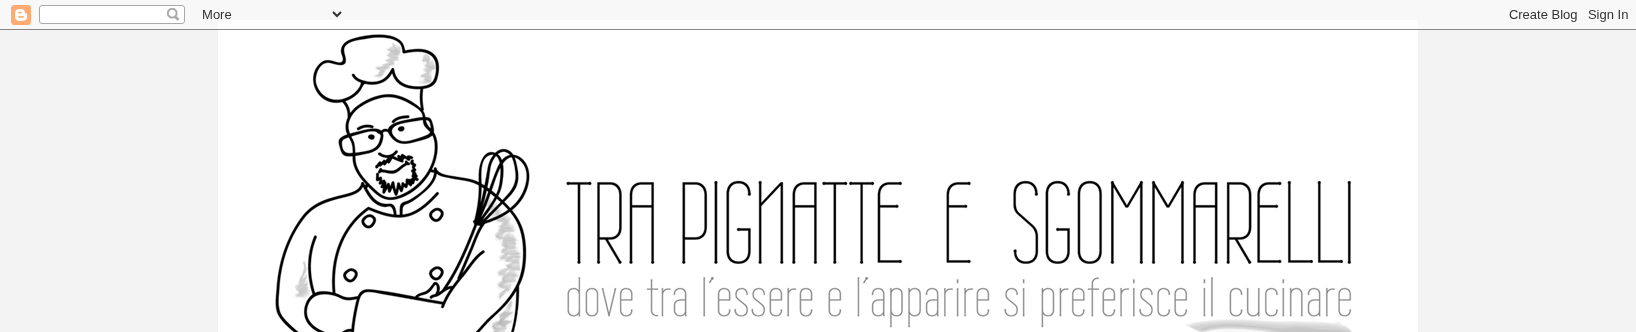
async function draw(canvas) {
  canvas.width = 1636
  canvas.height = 332
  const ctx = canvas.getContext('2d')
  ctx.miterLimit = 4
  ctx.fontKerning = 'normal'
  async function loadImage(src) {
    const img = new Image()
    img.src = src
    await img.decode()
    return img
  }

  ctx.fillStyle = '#f3f3f3'
  ctx.fillRect(0, 0, 1636, 332)
  ctx.drawImage(await loadImage('image1.png'), 218, 20, 1200, 312)
  ctx.drawImage(await loadImage('image0.png'), 0, 0, 1636, 30)
}

draw(document.querySelector('canvas'))
